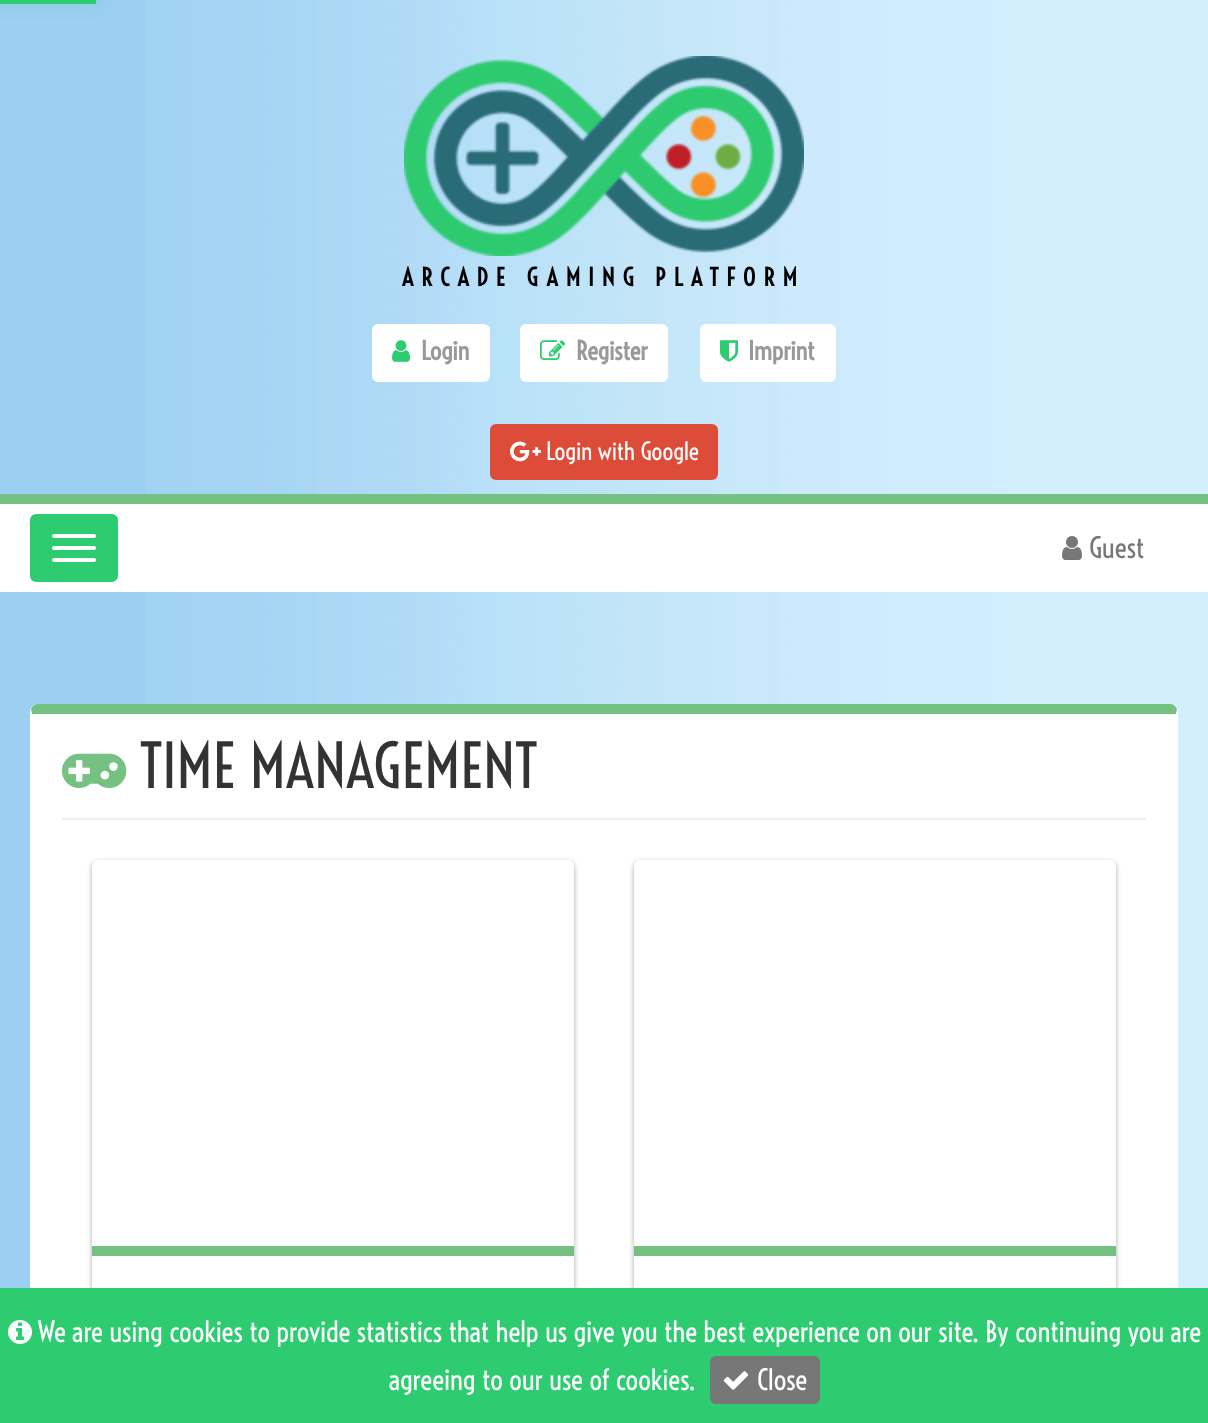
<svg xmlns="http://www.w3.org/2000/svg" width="1208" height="1423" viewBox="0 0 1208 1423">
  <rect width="100%" height="100%" fill="#9ccff2"/>
  <image x="146" y="0" width="1062" height="1288" href="img/1.png"/>
  <path d="M0 0h96v4H0z" fill="#2ecc71"/>
  <path d="M-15 -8h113v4H-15z" fill="#2ecc71" filter="blur(5px)"/>
  <path d="M-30 -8h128v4H-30z" fill="#2ecc71" filter="blur(10px)"/>
  <image x="404" y="56" width="400" height="200" href="img/2.png"/>
  <rect x="372" y="324" width="118" height="58" rx="6" fill="#fff"/>
  <image x="392" y="340" width="18" height="22" href="img/3.png"/>
  <rect x="520" y="324" width="148" height="58" rx="6" fill="#fff"/>
  <image x="540" y="340" width="26" height="20" href="img/4.png"/>
  <rect x="700" y="324" width="136" height="58" rx="6" fill="#fff"/>
  <image x="720" y="340" width="18" height="22" href="img/5.png"/>
  <rect x="490" y="424" width="228" height="56" rx="6" fill="#dd4b39"/>
  <image x="510" y="441" width="31" height="21" href="img/6.png"/>
  <path d="M0 504h1208v88H0z" fill="#fff"/>
  <path d="M0 494h1208v10H0z" fill="#75c181"/>
  <rect x="31" y="515" width="86" height="66" rx="5" fill="#2ecc71" stroke="#2ecc71" stroke-width="2"/>
  <rect x="52" y="534" width="44" height="4" rx="2" fill="#fff"/>
  <rect x="52" y="546" width="44" height="4" rx="2" fill="#fff"/>
  <rect x="52" y="558" width="44" height="4" rx="2" fill="#fff"/>
  <image x="1062" y="536" width="20" height="24" href="img/7.png"/>
  <rect x="30" y="704" width="1148" height="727" rx="8" fill="#fff"/>
  <path d="M38 704C35 704 32 706 31 709L32 714H1176L1177 709C1176 706 1173 704 1170 704Z" fill="#75c181"/>
  <path d="M62 818h1084v2H62z" fill="#eee"/>
  <image x="62" y="753" width="65" height="35" href="img/8.png"/>
  <rect x="92" y="862" width="482" height="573" rx="6" fill="#0000003d" filter="blur(2px)"/>
  <rect x="92" y="862" width="482" height="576" rx="6" fill="#0000001f" filter="blur(3px)"/>
  <rect x="92" y="860" width="482" height="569" rx="6" fill="#fff"/>
  <path d="M92 1246h482v10H92z" fill="#75c181"/>
  <rect x="634" y="862" width="482" height="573" rx="6" fill="#0000003d" filter="blur(2px)"/>
  <rect x="634" y="862" width="482" height="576" rx="6" fill="#0000001f" filter="blur(3px)"/>
  <rect x="634" y="860" width="482" height="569" rx="6" fill="#fff"/>
  <path d="M634 1246h482v10H634z" fill="#75c181"/>
  <path d="M0 1288h1208v135H0z" fill="#2ecc71"/>
  <image x="8" y="1320" width="24" height="24" href="img/9.png"/>
  <rect x="710" y="1356" width="110" height="48" rx="6" fill="#777"/>
  <image x="723" y="1371" width="26" height="19" href="img/10.png"/>
  <text x="402" y="286" font-family="Voltaire" font-size="24" font-weight="bold" letter-spacing="8" fill="#000">ARCADE GAMING PLATFORM</text>
  <g font-family="Voltaire" font-size="25" font-weight="bold" fill="#999">
    <text x="421" y="360">Login</text>
    <text x="576" y="360">Register</text>
    <text x="748" y="360">Imprint</text>
  </g>
  <text x="546" y="460" font-family="Voltaire" font-size="24" fill="#fff">Login with Google</text>
  <text x="1089" y="558" font-family="Voltaire" font-size="28" fill="#777">Guest</text>
  <text x="140" y="788" font-family="Voltaire" font-size="60" fill="#333">TIME MANAGEMENT</text>
  <g font-family="Voltaire" font-size="28" fill="#fff">
    <text x="38" y="1342">We are using cookies to provide statistics that help us give you the best experience on our site. By continuing you are</text>
    <text x="389" y="1390">agreeing to our use of cookies.</text>
    <text x="757" y="1390">Close</text>
  </g>
</svg>
